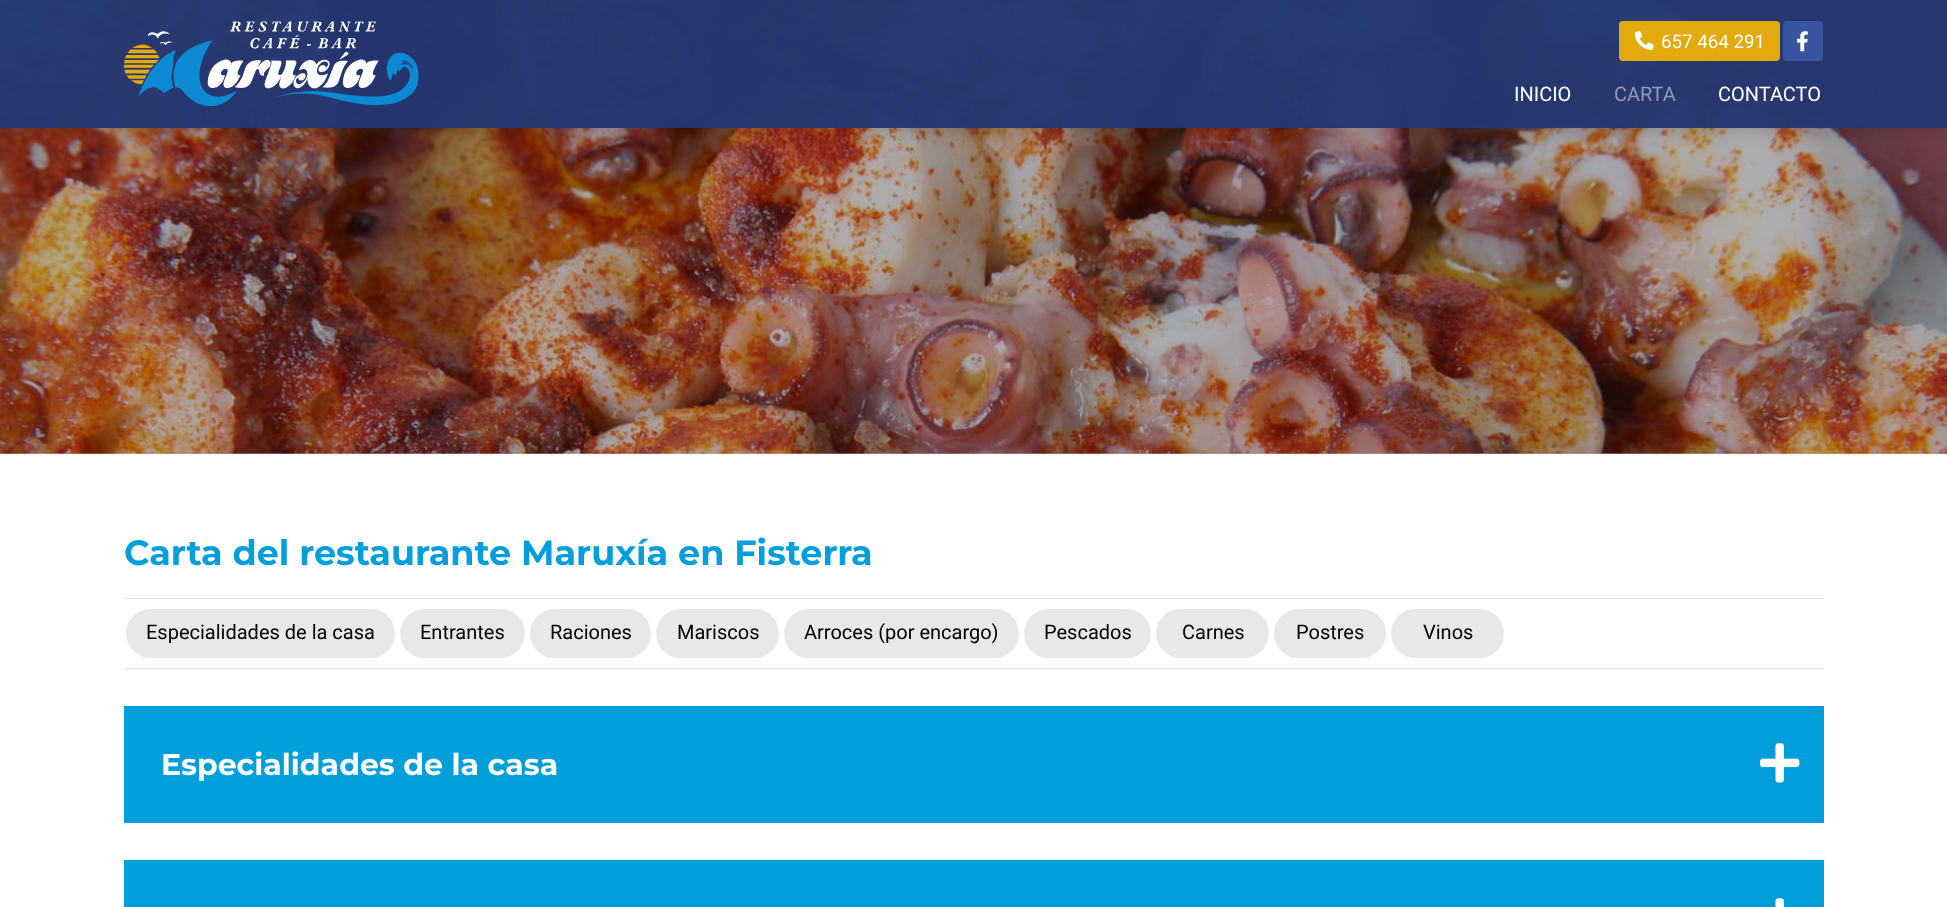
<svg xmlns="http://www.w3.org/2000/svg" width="1947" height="907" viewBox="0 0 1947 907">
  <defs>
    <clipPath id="clip1"><path d="M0 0H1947V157H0ZM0 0H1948V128H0Z" clip-rule="evenodd"/></clipPath>
  </defs>
  <rect width="100%" height="100%" fill="#fff"/>
  <path d="M0 453h1947v1H0z" fill="#b3b3b3"/>
  <image x="0" y="0" width="1947" height="454" href="img/4.png"/>
  <g clip-path="url(#clip1)">
    <path d="M0 1h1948v128H0z" fill="#00000033" filter="blur(9px)"/>
  </g>
  <path d="M0 0h1947v128H0z" fill="#233772f5"/>
  <image x="124" y="21" width="295" height="85" href="img/1.png"/>
  <rect x="1619" y="21" width="161" height="40" rx="4" fill="#e2aa0d"/>
  <image x="1634" y="31" width="20" height="19" href="img/2.png"/>
  <rect x="1783" y="21" width="40" height="40" rx="4" fill="#3a559f"/>
  <image x="1797" y="31" width="11" height="21" href="img/3.png"/>
  <path d="M124 598h1700v1H124z" fill="#e8e8e8"/>
  <path d="M124 668h1700v1H124z" fill="#e8e8e8"/>
  <rect x="126" y="609" width="269" height="49" rx="24.5" fill="#e8e8e8"/>
  <rect x="400" y="609" width="125" height="49" rx="24.5" fill="#e8e8e8"/>
  <rect x="530" y="609" width="121" height="49" rx="24.5" fill="#e8e8e8"/>
  <rect x="656" y="609" width="123" height="49" rx="24.5" fill="#e8e8e8"/>
  <rect x="784" y="609" width="235" height="49" rx="24.5" fill="#e8e8e8"/>
  <rect x="1024" y="609" width="127" height="49" rx="24.5" fill="#e8e8e8"/>
  <rect x="1156" y="609" width="113" height="49" rx="24.5" fill="#e8e8e8"/>
  <rect x="1274" y="609" width="112" height="49" rx="24.5" fill="#e8e8e8"/>
  <rect x="1391" y="609" width="113" height="49" rx="24.5" fill="#e8e8e8"/>
  <path d="M124 706h1700v117H124z" fill="#009edb"/>
  <image x="1760" y="743" width="40" height="40" href="img/5.png"/>
  <path d="M124 860h1700v47H124z" fill="#009edb"/>
  <image x="1775" y="898" width="9" height="9" href="img/6.png"/>
  <text x="1661" y="48" font-family="Roboto" font-size="18.75" fill="#fff">657 464 291</text>
  <text x="1514" y="101" font-family="Roboto" font-size="20" fill="#fff">INICIO</text>
  <text x="1614" y="101" font-family="Roboto" font-size="20" fill="#939bb7">CARTA</text>
  <text x="1718" y="101" font-family="Roboto" font-size="20" fill="#fff">CONTACTO</text>
  <text x="124" y="565" font-family="Montserrat" font-size="35" font-weight="bold" fill="#009edb">Carta del restaurante Maruxía en Fisterra</text>
  <g font-family="Roboto" font-size="20" fill="#000">
    <text x="146" y="639">Especialidades de la casa</text>
    <text x="420" y="639">Entrantes</text>
    <text x="550" y="639">Raciones</text>
    <text x="677" y="639">Mariscos</text>
    <text x="804" y="639">Arroces (por encargo)</text>
    <text x="1044" y="639">Pescados</text>
    <text x="1182" y="639">Carnes</text>
    <text x="1296" y="639">Postres</text>
    <text x="1423" y="639">Vinos</text>
  </g>
  <text x="161" y="775" font-family="Montserrat" font-size="30" font-weight="bold" fill="#fff">Especialidades de la casa</text>
</svg>
